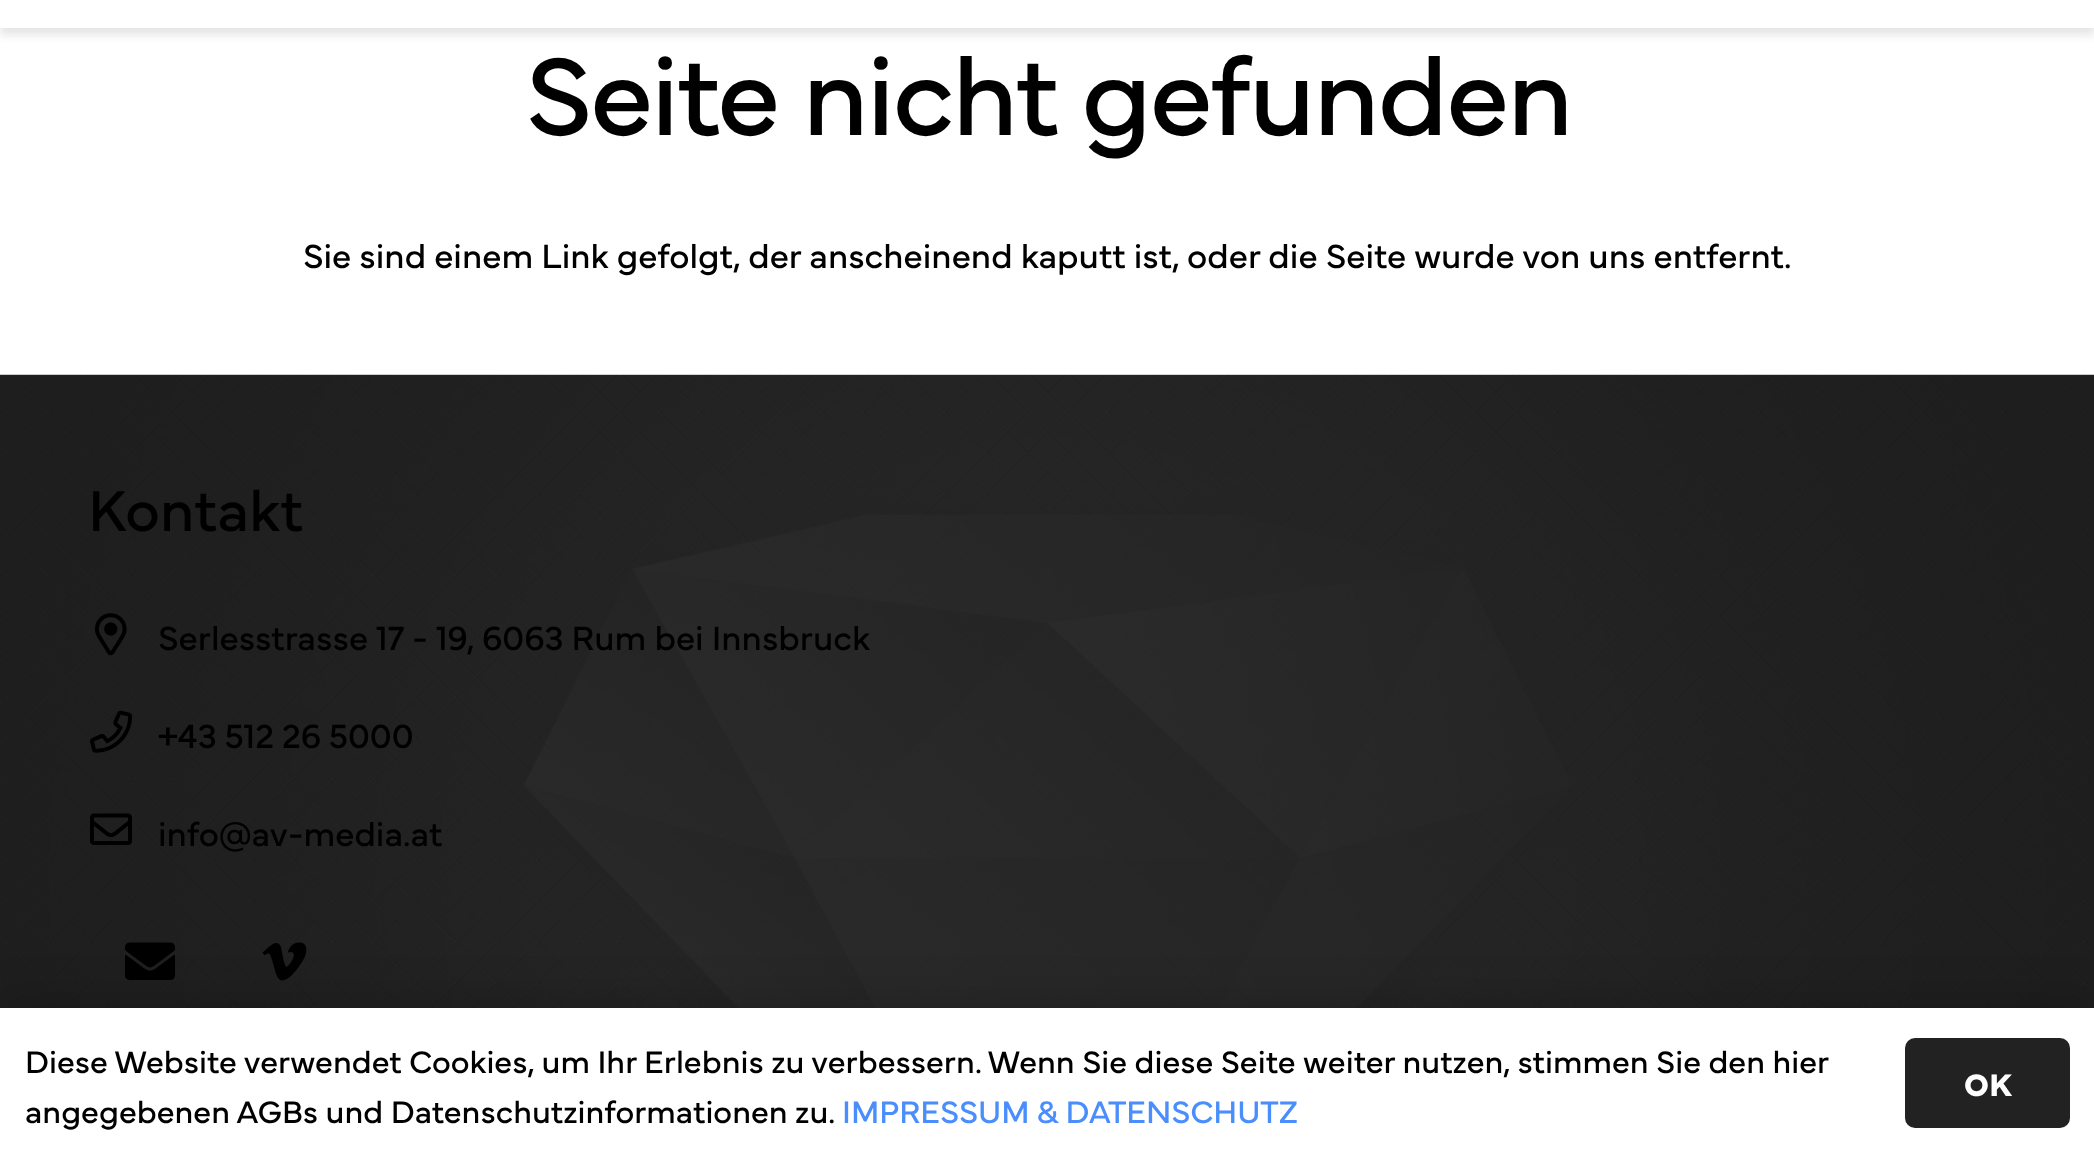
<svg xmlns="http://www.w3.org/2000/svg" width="2094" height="1157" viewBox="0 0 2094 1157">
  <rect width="100%" height="100%" fill="#fff"/>
  <path d="M0 -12h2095v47H0z" fill="#0000001a" filter="blur(4px)"/>
  <path d="M0 0h2094v28H0z" fill="#fff"/>
  <image x="0" y="374" width="2094" height="634" href="img/1.png"/>
  <image x="95" y="613" width="32" height="43" href="img/2.png"/>
  <image x="90" y="710" width="42" height="43" href="img/3.png"/>
  <image x="90" y="813" width="42" height="32" href="img/4.png"/>
  <image x="125" y="942" width="50" height="38" href="img/5.png"/>
  <image x="262" y="942" width="45" height="39" href="img/6.png"/>
  <path d="M0 995h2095v150H0z" fill="#00000026" filter="blur(19px)"/>
  <path d="M0 1008h2094v149H0z" fill="#fff"/>
  <rect x="1905" y="1038" width="165" height="90" rx="10" fill="#222"/>
  <text x="525" y="135" font-family="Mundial" font-size="115" letter-spacing="-2.25" fill="#000">Seite nicht gefunden</text>
  <text x="303" y="268" font-family="Mundial" font-size="35" fill="#000">Sie sind einem Link gefolgt, der anscheinend kaputt ist, oder die Seite wurde von uns entfernt.</text>
  <text x="88" y="531" font-family="Mundial" font-size="60" fill="#000">Kontakt</text>
  <g font-family="Mundial" font-size="35" fill="#000">
    <text x="158" y="650">Serlesstrasse 17 - 19, 6063 Rum bei Innsbruck</text>
    <text x="158" y="748">+43 512 26 5000</text>
    <text x="158" y="846">info@av-media.at</text>
  </g>
  <g font-family="Mundial" font-size="32.5" fill="#000">
    <text x="25" y="1073">Diese Website verwendet Cookies, um Ihr Erlebnis zu verbessern. Wenn Sie diese Seite weiter nutzen, stimmen Sie den hier</text>
    <text x="25" y="1123">angegebenen AGBs und Datenschutzinformationen zu.</text>
  </g>
  <text x="842" y="1123" font-family="Mundial" font-size="32.5" fill="#498efc">IMPRESSUM &amp; DATENSCHUTZ</text>
  <text x="1964" y="1096" font-family="Mundial" font-size="32.5" font-weight="bold" fill="#fff">OK</text>
</svg>
